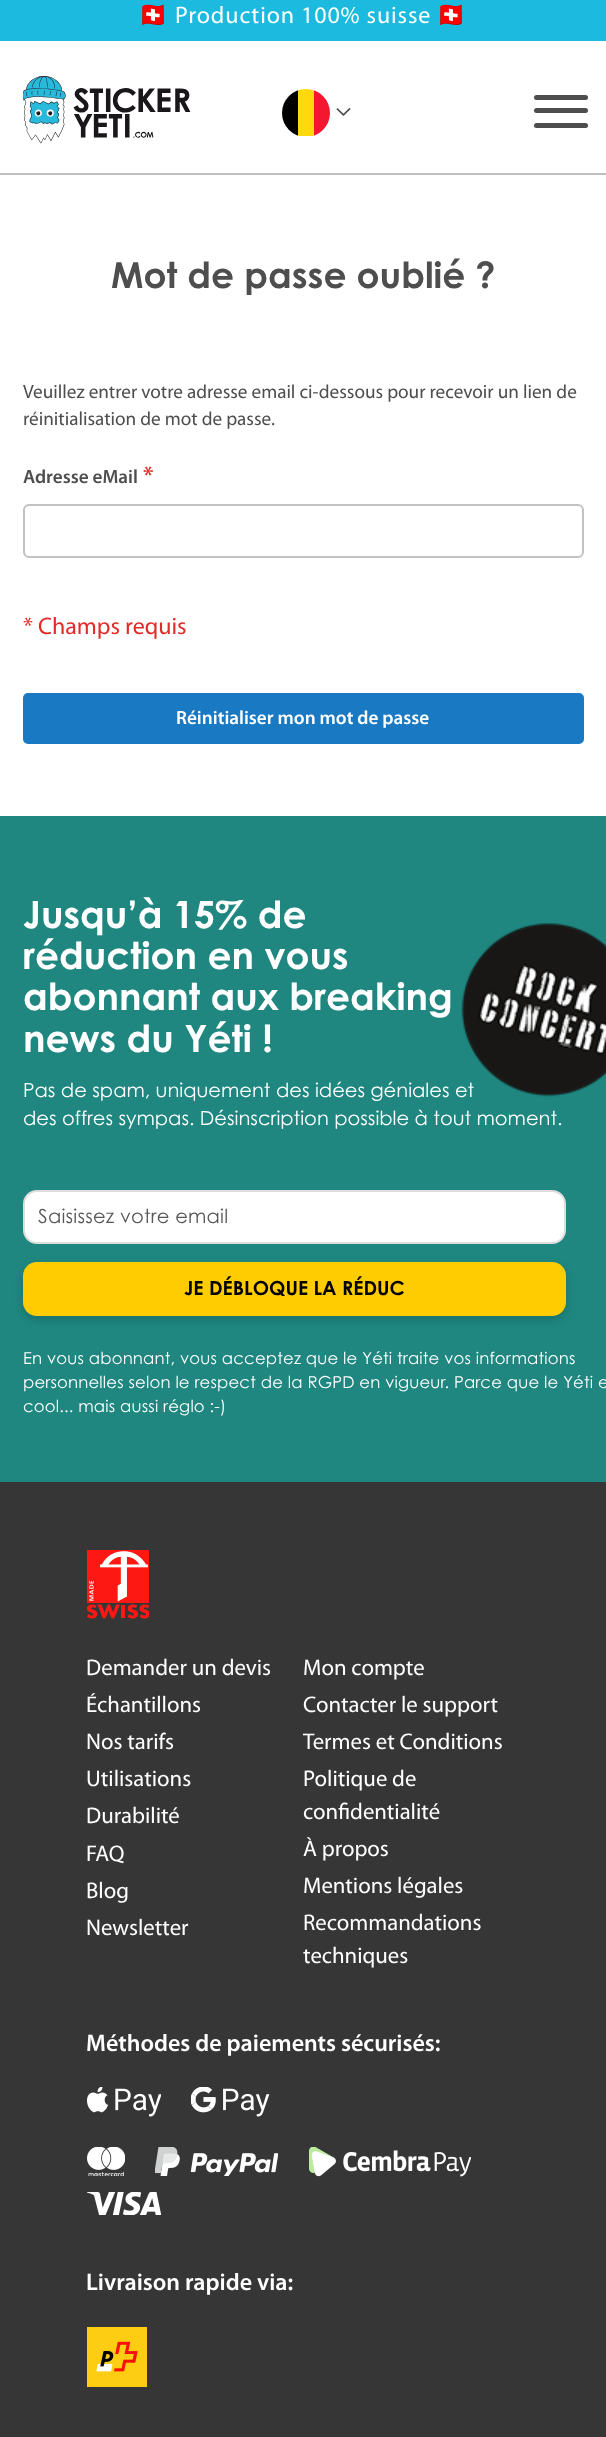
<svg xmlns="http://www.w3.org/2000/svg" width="606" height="2437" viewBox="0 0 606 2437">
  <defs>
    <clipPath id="clip1"><rect x="282" y="89" width="48" height="48" rx="24"/></clipPath>
  </defs>
  <rect width="100%" height="100%" fill="#fff"/>
  <path d="M0 0h606v41H0z" fill="#1dbadf"/>
  <image x="23" y="76" width="168" height="68" href="img/1.png"/>
  <rect x="534" y="95" width="54" height="5" rx="2.5" fill="#4e4e4e"/>
  <rect x="534" y="108" width="54" height="5" rx="2.5" fill="#4e4e4e"/>
  <rect x="534" y="123" width="54" height="5" rx="2.5" fill="#4e4e4e"/>
  <g clip-path="url(#clip1)">
    <path d="M282 90h16v46H282z" fill="#000"/>
    <path d="M298 89h16v47H298z" fill="#ffd90c"/>
    <path d="M314 90h16v46H314z" fill="#f31830"/>
  </g>
  <image x="336" y="107" width="15" height="9" href="img/2.png"/>
  <path d="M0 173h606v2H0z" fill="#bfbfbf"/>
  <rect x="24" y="505" width="559" height="52" rx="5" fill="none" stroke="#c2c2c2" stroke-width="2"/>
  <rect x="24" y="694" width="559" height="49" rx="4" fill="#1979c3" stroke="#1979c3" stroke-width="2"/>
  <path d="M0 1482h606v955H0z" fill="#363636"/>
  <path d="M0 816h606v666H0z" fill="#1f8780"/>
  <image x="461" y="923" width="145" height="174" href="img/3.png"/>
  <rect x="24" y="1191" width="541" height="52" rx="13" fill="#fff" stroke="#ddd" stroke-width="2"/>
  <rect x="23" y="1266" width="543" height="54" rx="14" fill="#00000029" filter="blur(4.5px)"/>
  <rect x="23" y="1262" width="543" height="54" rx="14" fill="#ffcc01"/>
  <image x="87" y="1550" width="62" height="69" href="img/4.png"/>
  <image x="87" y="2087" width="74" height="30" href="img/5.png"/>
  <image x="191" y="2087" width="79" height="30" href="img/6.png"/>
  <image x="87" y="2147" width="38" height="29" href="img/7.png"/>
  <image x="155" y="2147" width="123" height="29" href="img/8.png"/>
  <image x="309" y="2147" width="162" height="30" href="img/9.png"/>
  <image x="87" y="2192" width="74" height="23" href="img/10.png"/>
  <image x="87" y="2327" width="60" height="60" href="img/11.png"/>
  <text x="138" y="23" font-family="Noto Color Emoji" font-size="24" letter-spacing="0.9" fill="#fff">🇨🇭</text>
  <text x="175" y="23" font-family="Myriad" font-size="24" letter-spacing="0.9" fill="#fff">Production 100% suisse</text>
  <text x="436" y="23" font-family="Noto Color Emoji" font-size="24" letter-spacing="0.9" fill="#fff">🇨🇭</text>
  <text x="111" y="288" font-family="Century Gothic" font-size="36" font-weight="bold" fill="#4e4e4e">Mot de passe oublié ?</text>
  <g font-family="Myriad" font-size="19.2" fill="#4e4e4e">
    <text x="23" y="398">Veuillez entrer votre adresse email ci-dessous pour recevoir un lien de</text>
    <text x="23" y="425">réinitialisation de mot de passe.</text>
  </g>
  <text x="23" y="483" font-family="Myriad" font-size="19.2" font-weight="600" fill="#4e4e4e">Adresse eMail</text>
  <text x="143" y="483" font-family="Myriad" font-size="24" font-weight="600" fill="#e02b27">*</text>
  <text x="23" y="634" font-family="Myriad" font-size="24" fill="#e02b27">* Champs requis</text>
  <text x="176" y="724" font-family="Myriad" font-size="19.2" font-weight="600" fill="#fff">Réinitialiser mon mot de passe</text>
  <g font-family="Century Gothic" font-size="37.5" font-weight="bold" fill="#fff">
    <text x="23" y="928">Jusqu’à 15% de</text>
    <text x="23" y="969">réduction en vous</text>
    <text x="23" y="1010">abonnant aux breaking</text>
    <text x="23" y="1052">news du Yéti !</text>
  </g>
  <g font-family="Century Gothic" font-size="19.5" fill="#fff">
    <text x="23" y="1097">Pas de spam, uniquement des idées géniales et</text>
    <text x="23" y="1125">des offres sympas. Désinscription possible à tout moment.</text>
  </g>
  <text x="38" y="1223" font-family="Century Gothic" font-size="19.5" letter-spacing="0.2" fill="#575757">Saisissez votre email</text>
  <text x="184" y="1295" font-family="Century Gothic" font-size="19.5" font-weight="bold" fill="#000">JE DÉBLOQUE LA RÉDUC</text>
  <g font-family="Century Gothic" font-size="16.5" letter-spacing="0.17" fill="#fff">
    <text x="23" y="1364">En vous abonnant, vous acceptez que le Yéti traite vos informations</text>
    <text x="23" y="1388">personnelles selon le respect de la RGPD en vigueur. Parce que le Yéti e</text>
    <text x="23" y="1412">cool... mais aussi réglo :-)</text>
  </g>
  <g font-family="Myriad" font-size="22.75" fill="#fff">
    <text x="86" y="1675">Demander un devis</text>
    <text x="86" y="1712">Échantillons</text>
    <text x="86" y="1749">Nos tarifs</text>
    <text x="86" y="1786">Utilisations</text>
    <text x="86" y="1823">Durabilité</text>
    <text x="86" y="1861">FAQ</text>
    <text x="86" y="1898">Blog</text>
    <text x="86" y="1935">Newsletter</text>
    <text x="303" y="1675">Mon compte</text>
    <text x="303" y="1712">Contacter le support</text>
    <text x="303" y="1749">Termes et Conditions</text>
    <text x="303" y="1786">Politique de</text>
    <text x="303" y="1819">confidentialité</text>
    <text x="303" y="1856">À propos</text>
    <text x="303" y="1893">Mentions légales</text>
    <text x="303" y="1930">Recommandations</text>
    <text x="303" y="1963">techniques</text>
  </g>
  <g font-family="Myriad" font-size="24" font-weight="600" fill="#fff">
    <text x="86" y="2051">Méthodes de paiements sécurisés:</text>
    <text x="86" y="2290">Livraison rapide via:</text>
  </g>
</svg>
